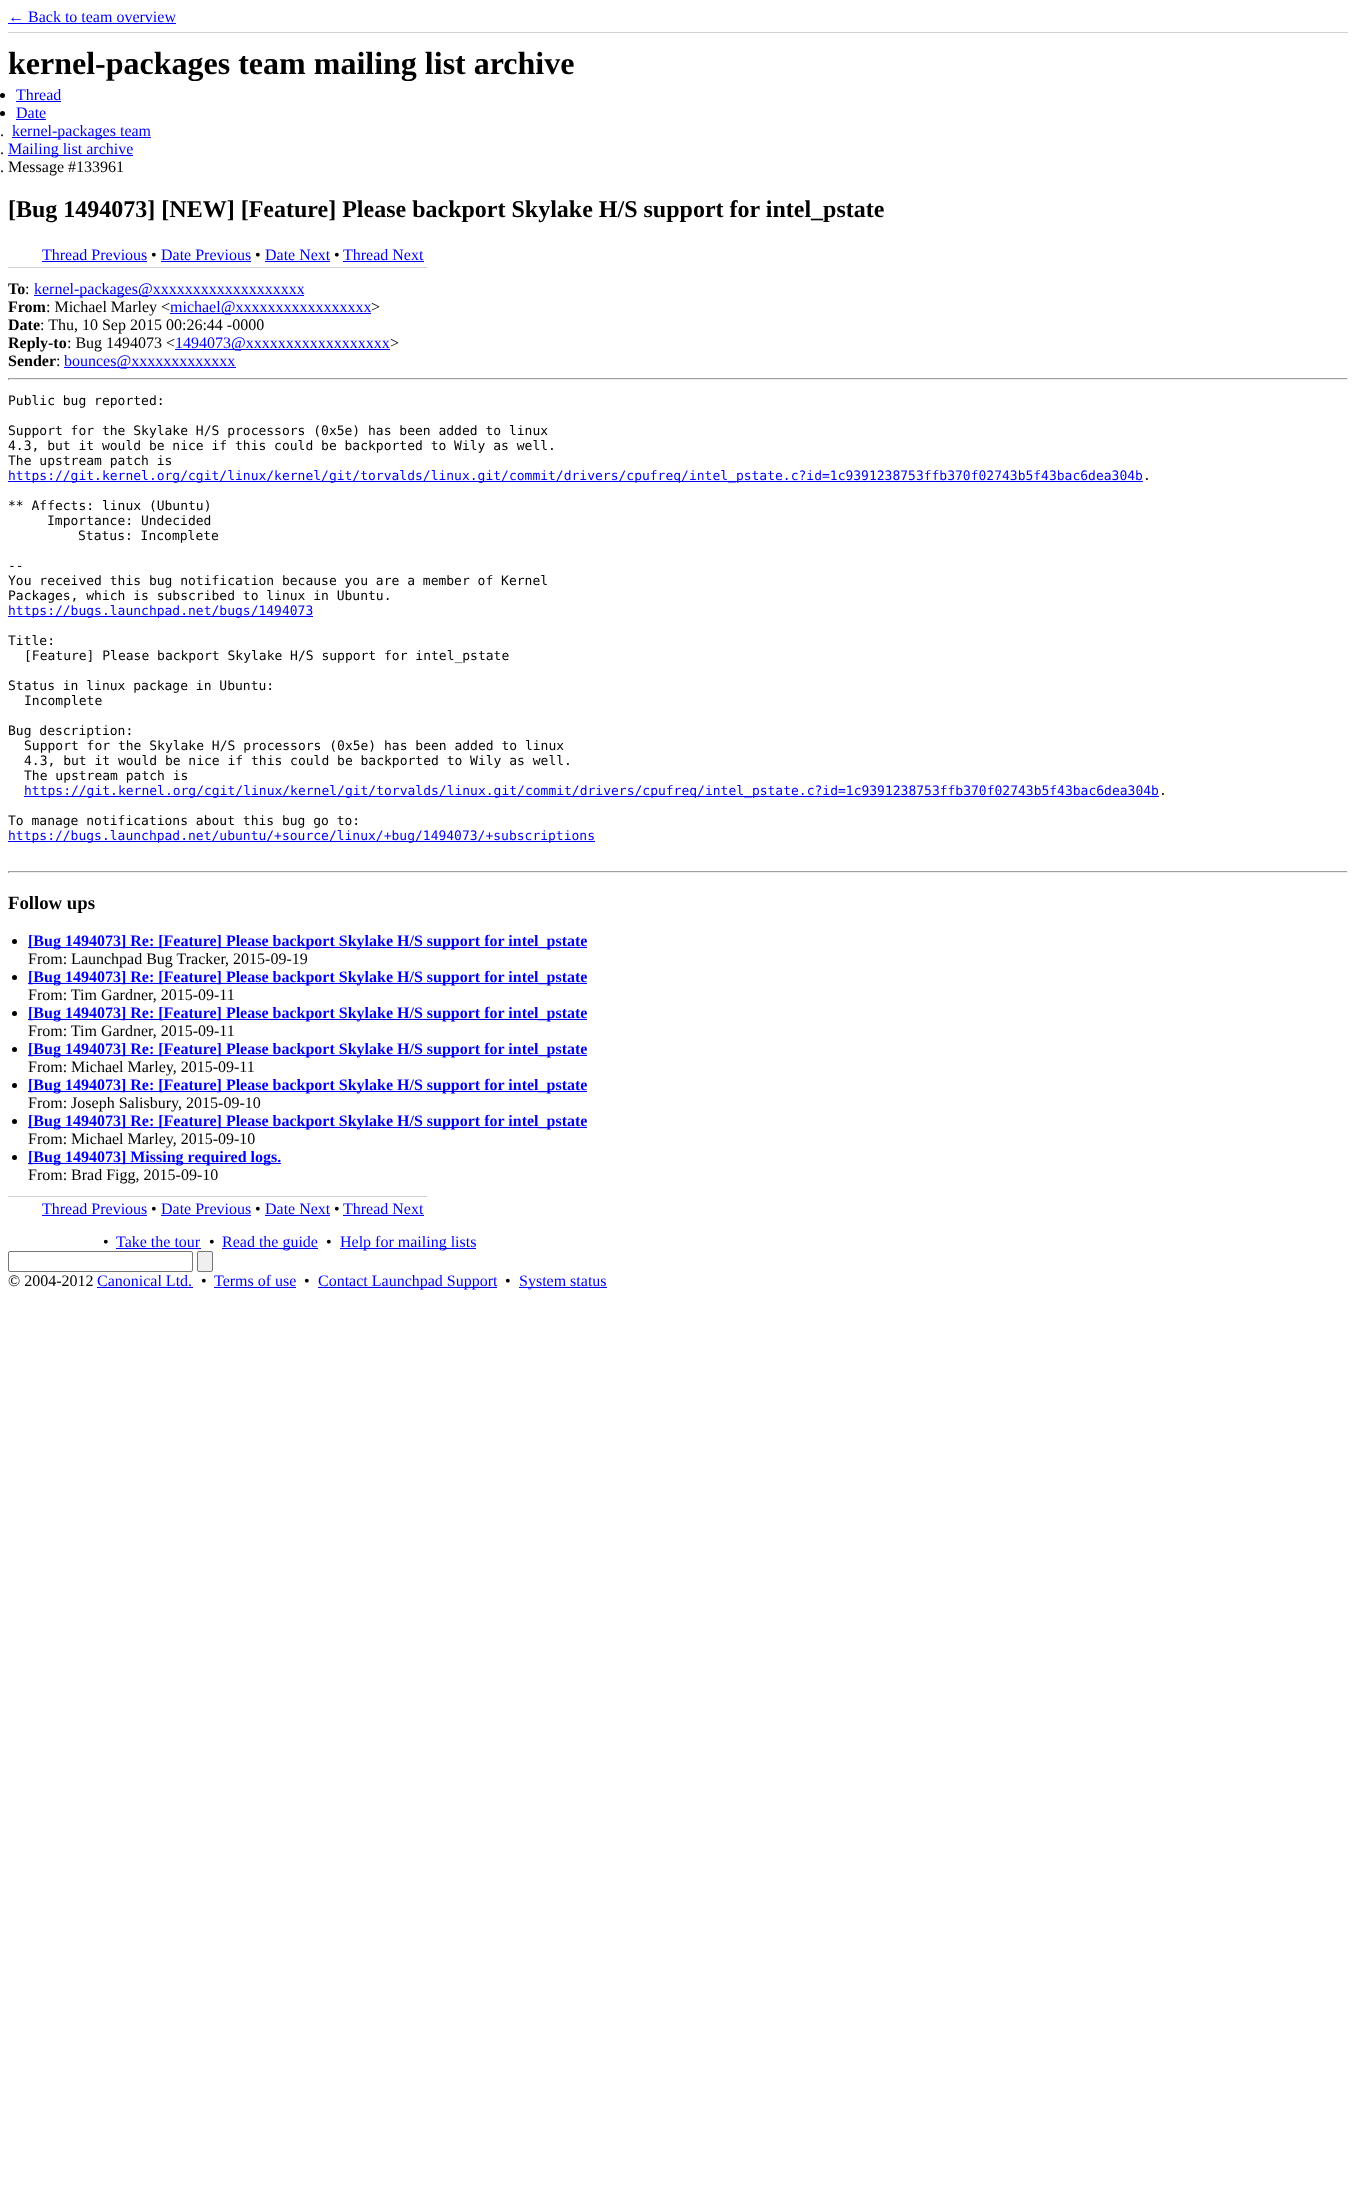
<svg xmlns="http://www.w3.org/2000/svg" width="1356" height="2185" viewBox="0 0 1356 2185">
  <rect width="100%" height="100%" fill="#fff"/>
  <path d="M8 32h1340v1H8z" fill="#d2d2d2"/>
  <path d="M8 23h168v1H8z" fill="#00e"/>
  <circle cx="2.5" cy="95.5" r="2.5" fill="#000"/>
  <path d="M16 101h45v1H16z" fill="#00e"/>
  <circle cx="2.5" cy="113.5" r="2.5" fill="#000"/>
  <path d="M16 119h30v1H16z" fill="#00e"/>
  <path d="M12 137h139v1H12z" fill="#00e"/>
  <path d="M8 155h125v1H8z" fill="#00e"/>
  <path d="M8 267h419v1H8z" fill="#d2d2d2"/>
  <path d="M42 261h105v1H42z" fill="#00e"/>
  <path d="M161 261h90v1H161z" fill="#00e"/>
  <path d="M265 261h65v1H265z" fill="#00e"/>
  <path d="M343 261h81v1H343z" fill="#00e"/>
  <path d="M34 295h270v1H34z" fill="#00e"/>
  <path d="M170 313h201v1H170z" fill="#00e"/>
  <path d="M175 349h215v1H175z" fill="#00e"/>
  <path d="M64 367h172v1H64z" fill="#00e"/>
  <path d="M8 378h1340v1H8z" fill="#9f9f9f"/>
  <path d="M1347 378h1v2H1347z" fill="#eee"/>
  <path d="M8 379h1340v1H8z" fill="#eee"/>
  <path d="M8 378h1v2H8z" fill="#9f9f9f"/>
  <path d="M8 481h1135v1H8z" fill="#00e"/>
  <path d="M8 616h305v1H8z" fill="#00e"/>
  <path d="M24 796h1135v1H24z" fill="#00e"/>
  <path d="M8 841h587v1H8z" fill="#00e"/>
  <path d="M8 871h1340v1H8z" fill="#9f9f9f"/>
  <path d="M1347 871h1v2H1347z" fill="#eee"/>
  <path d="M8 872h1340v1H8z" fill="#eee"/>
  <path d="M8 871h1v2H8z" fill="#9f9f9f"/>
  <circle cx="14.5" cy="941.5" r="2.5" fill="#000"/>
  <path d="M28 947h559v1H28z" fill="#00e"/>
  <circle cx="14.5" cy="977.5" r="2.5" fill="#000"/>
  <path d="M28 983h559v1H28z" fill="#00e"/>
  <circle cx="14.5" cy="1013.5" r="2.5" fill="#000"/>
  <path d="M28 1019h559v1H28z" fill="#00e"/>
  <circle cx="14.5" cy="1049.5" r="2.5" fill="#000"/>
  <path d="M28 1055h559v1H28z" fill="#00e"/>
  <circle cx="14.5" cy="1085.5" r="2.5" fill="#000"/>
  <path d="M28 1091h559v1H28z" fill="#00e"/>
  <circle cx="14.5" cy="1121.5" r="2.5" fill="#000"/>
  <path d="M28 1127h559v1H28z" fill="#00e"/>
  <circle cx="14.5" cy="1157.5" r="2.5" fill="#000"/>
  <path d="M28 1163h253v1H28z" fill="#00e"/>
  <path d="M8 1196h419v1H8z" fill="#d2d2d2"/>
  <path d="M42 1215h105v1H42z" fill="#00e"/>
  <path d="M161 1215h90v1H161z" fill="#00e"/>
  <path d="M265 1215h65v1H265z" fill="#00e"/>
  <path d="M343 1215h81v1H343z" fill="#00e"/>
  <path d="M116 1248h85v1H116z" fill="#00e"/>
  <path d="M222 1248h96v1H222z" fill="#00e"/>
  <path d="M340 1248h136v1H340z" fill="#00e"/>
  <rect x="8.5" y="1251.5" width="184" height="20" rx="1.5" fill="none" stroke="#767676"/>
  <rect x="197.5" y="1251.5" width="15" height="20" rx="1.5" fill="#efefef" stroke="#767676"/>
  <path d="M97 1287h96v1H97z" fill="#00e"/>
  <path d="M214 1287h82v1H214z" fill="#00e"/>
  <path d="M318 1287h179v1H318z" fill="#00e"/>
  <path d="M519 1287h88v1H519z" fill="#00e"/>
  <text x="8" y="22" font-family="Liberation Serif" font-size="16" fill="#00e">← Back to team overview</text>
  <text x="8" y="74" font-family="Liberation Serif" font-size="32" font-weight="bold" fill="#000">kernel-packages team mailing list archive</text>
  <g font-family="Liberation Serif" font-size="16" fill="#00e">
    <text x="16" y="100">Thread</text>
    <text x="16" y="118">Date</text>
  </g>
  <text x="0" y="136" font-family="Liberation Serif" font-size="16" fill="#000">.</text>
  <text x="12" y="136" font-family="Liberation Serif" font-size="16" fill="#00e">kernel-packages team</text>
  <text x="0" y="154" font-family="Liberation Serif" font-size="16" fill="#000">.</text>
  <text x="8" y="154" font-family="Liberation Serif" font-size="16" fill="#00e">Mailing list archive</text>
  <text x="0" y="172" font-family="Liberation Serif" font-size="16" fill="#000">. Message #133961</text>
  <text x="8" y="217" font-family="Liberation Serif" font-size="24" font-weight="bold" fill="#000">[Bug 1494073] [NEW] [Feature] Please backport Skylake H/S support for intel_pstate</text>
  <text x="42" y="260" font-family="Liberation Serif" font-size="16" fill="#00e">Thread Previous</text>
  <text x="151" y="260" font-family="Liberation Serif" font-size="16" fill="#000">•</text>
  <text x="161" y="260" font-family="Liberation Serif" font-size="16" fill="#00e">Date Previous</text>
  <text x="255" y="260" font-family="Liberation Serif" font-size="16" fill="#000">•</text>
  <text x="265" y="260" font-family="Liberation Serif" font-size="16" fill="#00e">Date Next</text>
  <text x="334" y="260" font-family="Liberation Serif" font-size="16" fill="#000">•</text>
  <text x="343" y="260" font-family="Liberation Serif" font-size="16" fill="#00e">Thread Next</text>
  <text x="8" y="294" font-family="Liberation Serif" font-size="16" font-weight="bold" fill="#000">To</text>
  <text x="25" y="294" font-family="Liberation Serif" font-size="16" fill="#000">:</text>
  <text x="34" y="294" font-family="Liberation Serif" font-size="16" fill="#00e">kernel-packages@xxxxxxxxxxxxxxxxxxx</text>
  <text x="8" y="312" font-family="Liberation Serif" font-size="16" font-weight="bold" fill="#000">From</text>
  <text x="46" y="312" font-family="Liberation Serif" font-size="16" fill="#000">: Michael Marley &lt;</text>
  <text x="170" y="312" font-family="Liberation Serif" font-size="16" fill="#00e">michael@xxxxxxxxxxxxxxxxx</text>
  <text x="371" y="312" font-family="Liberation Serif" font-size="16" fill="#000">&gt;</text>
  <text x="8" y="330" font-family="Liberation Serif" font-size="16" font-weight="bold" fill="#000">Date</text>
  <text x="40" y="330" font-family="Liberation Serif" font-size="16" fill="#000">: Thu, 10 Sep 2015 00:26:44 -0000</text>
  <text x="8" y="348" font-family="Liberation Serif" font-size="16" font-weight="bold" fill="#000">Reply-to</text>
  <text x="67" y="348" font-family="Liberation Serif" font-size="16" fill="#000">: Bug 1494073 &lt;</text>
  <text x="175" y="348" font-family="Liberation Serif" font-size="16" fill="#00e">1494073@xxxxxxxxxxxxxxxxxx</text>
  <text x="390" y="348" font-family="Liberation Serif" font-size="16" fill="#000">&gt;</text>
  <text x="8" y="366" font-family="Liberation Serif" font-size="16" font-weight="bold" fill="#000">Sender</text>
  <text x="56" y="366" font-family="Liberation Serif" font-size="16" fill="#000">:</text>
  <text x="64" y="366" font-family="Liberation Serif" font-size="16" fill="#00e">bounces@xxxxxxxxxxxxx</text>
  <g font-family="DejaVu Sans Mono" font-size="13" fill="#000">
    <text x="8" y="405">Public bug reported:</text>
    <text x="8" y="435">Support for the Skylake H/S processors (0x5e) has been added to linux</text>
    <text x="8" y="450">4.3, but it would be nice if this could be backported to Wily as well.</text>
    <text x="8" y="465">The upstream patch is</text>
  </g>
  <text x="8" y="480" font-family="DejaVu Sans Mono" font-size="13" fill="#00e">https://git.kernel.org/cgit/linux/kernel/git/torvalds/linux.git/commit/drivers/cpufreq/intel_pstate.c?id=1c9391238753ffb370f02743b5f43bac6dea304b</text>
  <g font-family="DejaVu Sans Mono" font-size="13" fill="#000">
    <text x="1143" y="480">.</text>
    <text x="8" y="510">** Affects: linux (Ubuntu)</text>
    <text x="47" y="525">Importance: Undecided</text>
    <text x="78" y="540">Status: Incomplete</text>
    <text x="8" y="570">--</text>
    <text x="8" y="585">You received this bug notification because you are a member of Kernel</text>
    <text x="8" y="600">Packages, which is subscribed to linux in Ubuntu.</text>
  </g>
  <text x="8" y="615" font-family="DejaVu Sans Mono" font-size="13" fill="#00e">https://bugs.launchpad.net/bugs/1494073</text>
  <g font-family="DejaVu Sans Mono" font-size="13" fill="#000">
    <text x="8" y="645">Title:</text>
    <text x="24" y="660">[Feature] Please backport Skylake H/S support for intel_pstate</text>
    <text x="8" y="690">Status in linux package in Ubuntu:</text>
    <text x="24" y="705">Incomplete</text>
    <text x="8" y="735">Bug description:</text>
    <text x="24" y="750">Support for the Skylake H/S processors (0x5e) has been added to linux</text>
    <text x="24" y="765">4.3, but it would be nice if this could be backported to Wily as well.</text>
    <text x="24" y="780">The upstream patch is</text>
  </g>
  <text x="24" y="795" font-family="DejaVu Sans Mono" font-size="13" fill="#00e">https://git.kernel.org/cgit/linux/kernel/git/torvalds/linux.git/commit/drivers/cpufreq/intel_pstate.c?id=1c9391238753ffb370f02743b5f43bac6dea304b</text>
  <g font-family="DejaVu Sans Mono" font-size="13" fill="#000">
    <text x="1159" y="795">.</text>
    <text x="8" y="825">To manage notifications about this bug go to:</text>
  </g>
  <text x="8" y="840" font-family="DejaVu Sans Mono" font-size="13" fill="#00e">https://bugs.launchpad.net/ubuntu/+source/linux/+bug/1494073/+subscriptions</text>
  <text x="8" y="909" font-family="Liberation Serif" font-size="18.75" font-weight="bold" fill="#000">Follow ups</text>
  <text x="28" y="946" font-family="Liberation Serif" font-size="16" font-weight="bold" fill="#00e">[Bug 1494073] Re: [Feature] Please backport Skylake H/S support for intel_pstate</text>
  <text x="28" y="964" font-family="Liberation Serif" font-size="16" fill="#000">From: Launchpad Bug Tracker, 2015-09-19</text>
  <text x="28" y="982" font-family="Liberation Serif" font-size="16" font-weight="bold" fill="#00e">[Bug 1494073] Re: [Feature] Please backport Skylake H/S support for intel_pstate</text>
  <text x="28" y="1000" font-family="Liberation Serif" font-size="16" fill="#000">From: Tim Gardner, 2015-09-11</text>
  <text x="28" y="1018" font-family="Liberation Serif" font-size="16" font-weight="bold" fill="#00e">[Bug 1494073] Re: [Feature] Please backport Skylake H/S support for intel_pstate</text>
  <text x="28" y="1036" font-family="Liberation Serif" font-size="16" fill="#000">From: Tim Gardner, 2015-09-11</text>
  <text x="28" y="1054" font-family="Liberation Serif" font-size="16" font-weight="bold" fill="#00e">[Bug 1494073] Re: [Feature] Please backport Skylake H/S support for intel_pstate</text>
  <text x="28" y="1072" font-family="Liberation Serif" font-size="16" fill="#000">From: Michael Marley, 2015-09-11</text>
  <text x="28" y="1090" font-family="Liberation Serif" font-size="16" font-weight="bold" fill="#00e">[Bug 1494073] Re: [Feature] Please backport Skylake H/S support for intel_pstate</text>
  <text x="28" y="1108" font-family="Liberation Serif" font-size="16" fill="#000">From: Joseph Salisbury, 2015-09-10</text>
  <text x="28" y="1126" font-family="Liberation Serif" font-size="16" font-weight="bold" fill="#00e">[Bug 1494073] Re: [Feature] Please backport Skylake H/S support for intel_pstate</text>
  <text x="28" y="1144" font-family="Liberation Serif" font-size="16" fill="#000">From: Michael Marley, 2015-09-10</text>
  <text x="28" y="1162" font-family="Liberation Serif" font-size="16" font-weight="bold" fill="#00e">[Bug 1494073] Missing required logs.</text>
  <text x="28" y="1180" font-family="Liberation Serif" font-size="16" fill="#000">From: Brad Figg, 2015-09-10</text>
  <text x="42" y="1214" font-family="Liberation Serif" font-size="16" fill="#00e">Thread Previous</text>
  <text x="151" y="1214" font-family="Liberation Serif" font-size="16" fill="#000">•</text>
  <text x="161" y="1214" font-family="Liberation Serif" font-size="16" fill="#00e">Date Previous</text>
  <text x="255" y="1214" font-family="Liberation Serif" font-size="16" fill="#000">•</text>
  <text x="265" y="1214" font-family="Liberation Serif" font-size="16" fill="#00e">Date Next</text>
  <text x="334" y="1214" font-family="Liberation Serif" font-size="16" fill="#000">•</text>
  <text x="343" y="1214" font-family="Liberation Serif" font-size="16" fill="#00e">Thread Next</text>
  <text x="103" y="1247" font-family="Liberation Serif" font-size="16" fill="#000">•</text>
  <text x="116" y="1247" font-family="Liberation Serif" font-size="16" fill="#00e">Take the tour</text>
  <text x="209" y="1247" font-family="Liberation Serif" font-size="16" fill="#000">•</text>
  <text x="222" y="1247" font-family="Liberation Serif" font-size="16" fill="#00e">Read the guide</text>
  <text x="326" y="1247" font-family="Liberation Serif" font-size="16" fill="#000">•</text>
  <text x="340" y="1247" font-family="Liberation Serif" font-size="16" fill="#00e">Help for mailing lists</text>
  <text x="8" y="1286" font-family="Liberation Serif" font-size="16" fill="#000">© 2004-2012</text>
  <text x="97" y="1286" font-family="Liberation Serif" font-size="16" fill="#00e">Canonical Ltd.</text>
  <text x="201" y="1286" font-family="Liberation Serif" font-size="16" fill="#000">•</text>
  <text x="214" y="1286" font-family="Liberation Serif" font-size="16" fill="#00e">Terms of use</text>
  <text x="304" y="1286" font-family="Liberation Serif" font-size="16" fill="#000">•</text>
  <text x="318" y="1286" font-family="Liberation Serif" font-size="16" fill="#00e">Contact Launchpad Support</text>
  <text x="505" y="1286" font-family="Liberation Serif" font-size="16" fill="#000">•</text>
  <text x="519" y="1286" font-family="Liberation Serif" font-size="16" fill="#00e">System status</text>
</svg>
